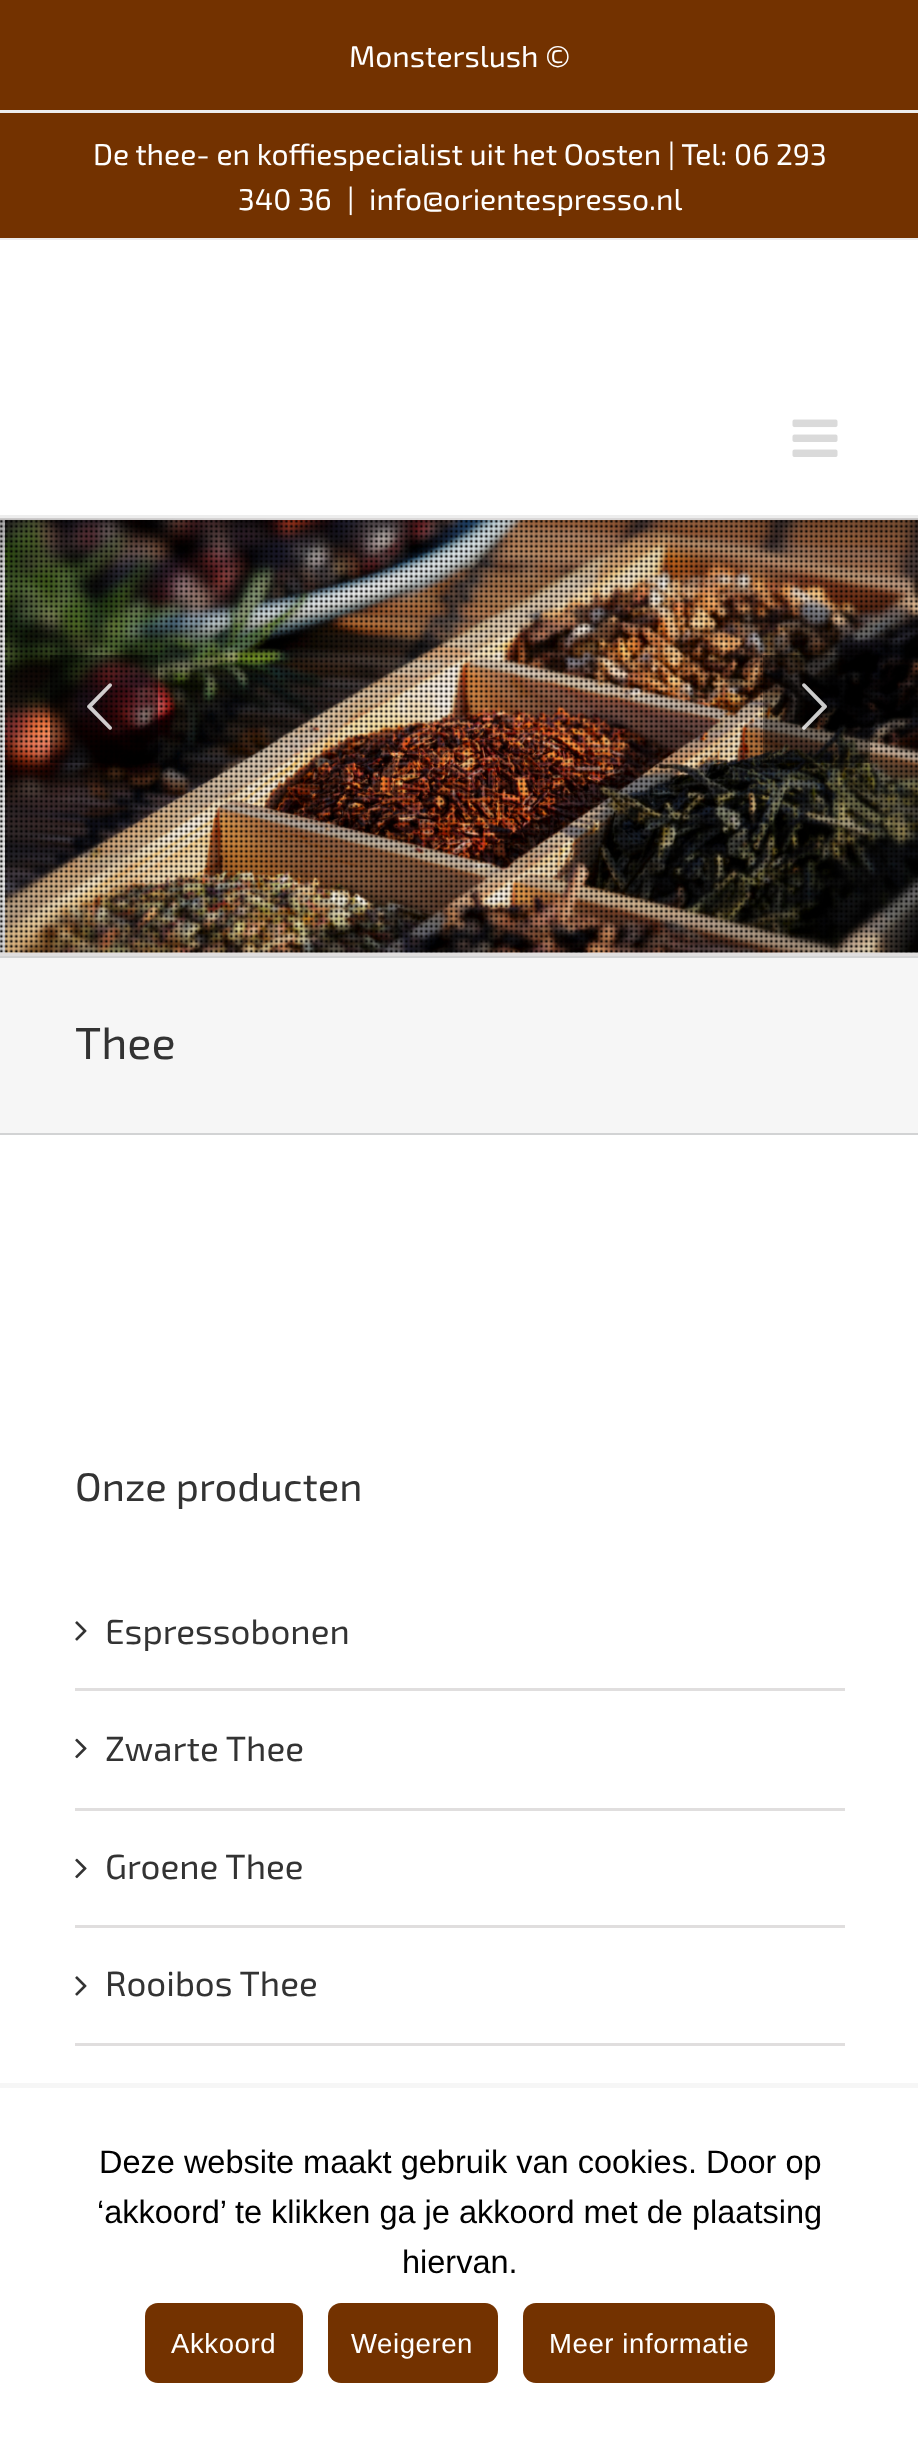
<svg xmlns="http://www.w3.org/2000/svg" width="918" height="2443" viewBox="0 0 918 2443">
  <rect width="100%" height="100%" fill="#f6f6f6"/>
  <path d="M0 0h918v238H0z" fill="#733200"/>
  <path d="M0 238h918v2H0z" fill="#ededed"/>
  <path d="M0 110h918v3H0z" fill="#ededed"/>
  <path d="M0 240h918v275H0z" fill="#fff"/>
  <path d="M0 515h918v3H0z" fill="#ededed"/>
  <image x="792" y="419" width="46" height="38" href="img/1.png"/>
  <path d="M0 521h918v432H0z" fill="#e9e9e9"/>
  <path d="M0 518h918v3H0z" fill="#e0dede"/>
  <path d="M0 953h918v3H0z" fill="#e0dede"/>
  <image x="5" y="520" width="913" height="433" href="img/4.png"/>
  <image x="0" y="520" width="918" height="433" href="img/3.png"/>
  <image x="0" y="518" width="918" height="68" href="img/2.png"/>
  <path d="M50 655h108v108H50z" fill="#00000066"/>
  <image x="87" y="683" width="25" height="47" href="img/5.png"/>
  <path d="M763 655h107v108H763z" fill="#00000066"/>
  <image x="802" y="683" width="25" height="47" href="img/6.png"/>
  <image x="0" y="902" width="915" height="51" href="img/7.png"/>
  <path d="M0 956h918v2H0z" fill="#d2d3d4"/>
  <path d="M0 1133h918v2H0z" fill="#d2d3d4"/>
  <path d="M0 1135h918v948H0z" fill="#fff"/>
  <path d="M75 1688h770v3H75z" fill="#e0dede"/>
  <image x="75" y="1621" width="12" height="20" href="img/8.png"/>
  <path d="M75 1808h770v3H75z" fill="#e0dede"/>
  <image x="75" y="1738" width="12" height="21" href="img/9.png"/>
  <path d="M75 1925h770v3H75z" fill="#e0dede"/>
  <image x="75" y="1858" width="12" height="21" href="img/9.png"/>
  <path d="M75 2043h770v3H75z" fill="#e0dede"/>
  <image x="75" y="1976" width="12" height="20" href="img/8.png"/>
  <path d="M0 2088h918v355H0z" fill="#fff"/>
  <rect x="145" y="2303" width="158" height="80" rx="13" fill="#733200"/>
  <rect x="328" y="2303" width="170" height="80" rx="13" fill="#733200"/>
  <rect x="523" y="2303" width="252" height="80" rx="13" fill="#733200"/>
  <g font-family="'Exo 2'" font-size="30" fill="#fff">
    <text x="349" y="67">Monsterslush ©</text>
    <text x="93" y="165">De thee- en koffiespecialist uit het Oosten | Tel: 06 293</text>
    <text x="238" y="210">340 36</text>
    <text x="347" y="210">|</text>
    <text x="369" y="210">info@orientespresso.nl</text>
  </g>
  <text x="75" y="1059" font-family="'Exo 2'" font-size="45" fill="#333">Thee</text>
  <text x="75" y="1501" font-family="'Exo 2'" font-size="40" fill="#333">Onze producten</text>
  <g font-family="'Exo 2'" font-size="35" fill="#333">
    <text x="105" y="1644">Espressobonen</text>
    <text x="105" y="1761">Zwarte Thee</text>
    <text x="105" y="1879">Groene Thee</text>
    <text x="105" y="1996">Rooibos Thee</text>
  </g>
  <g font-family="Liberation Sans" font-size="32.5" fill="#000">
    <text x="99" y="2173">Deze website maakt gebruik van cookies. Door op</text>
    <text x="97" y="2223">‘akkoord’ te klikken ga je akkoord met de plaatsing</text>
    <text x="402" y="2273">hiervan.</text>
  </g>
  <g font-family="Liberation Sans" font-size="27.5" letter-spacing="0.6" fill="#fff">
    <text x="171" y="2353">Akkoord</text>
    <text x="351" y="2353">Weigeren</text>
    <text x="549" y="2353">Meer informatie</text>
  </g>
</svg>
